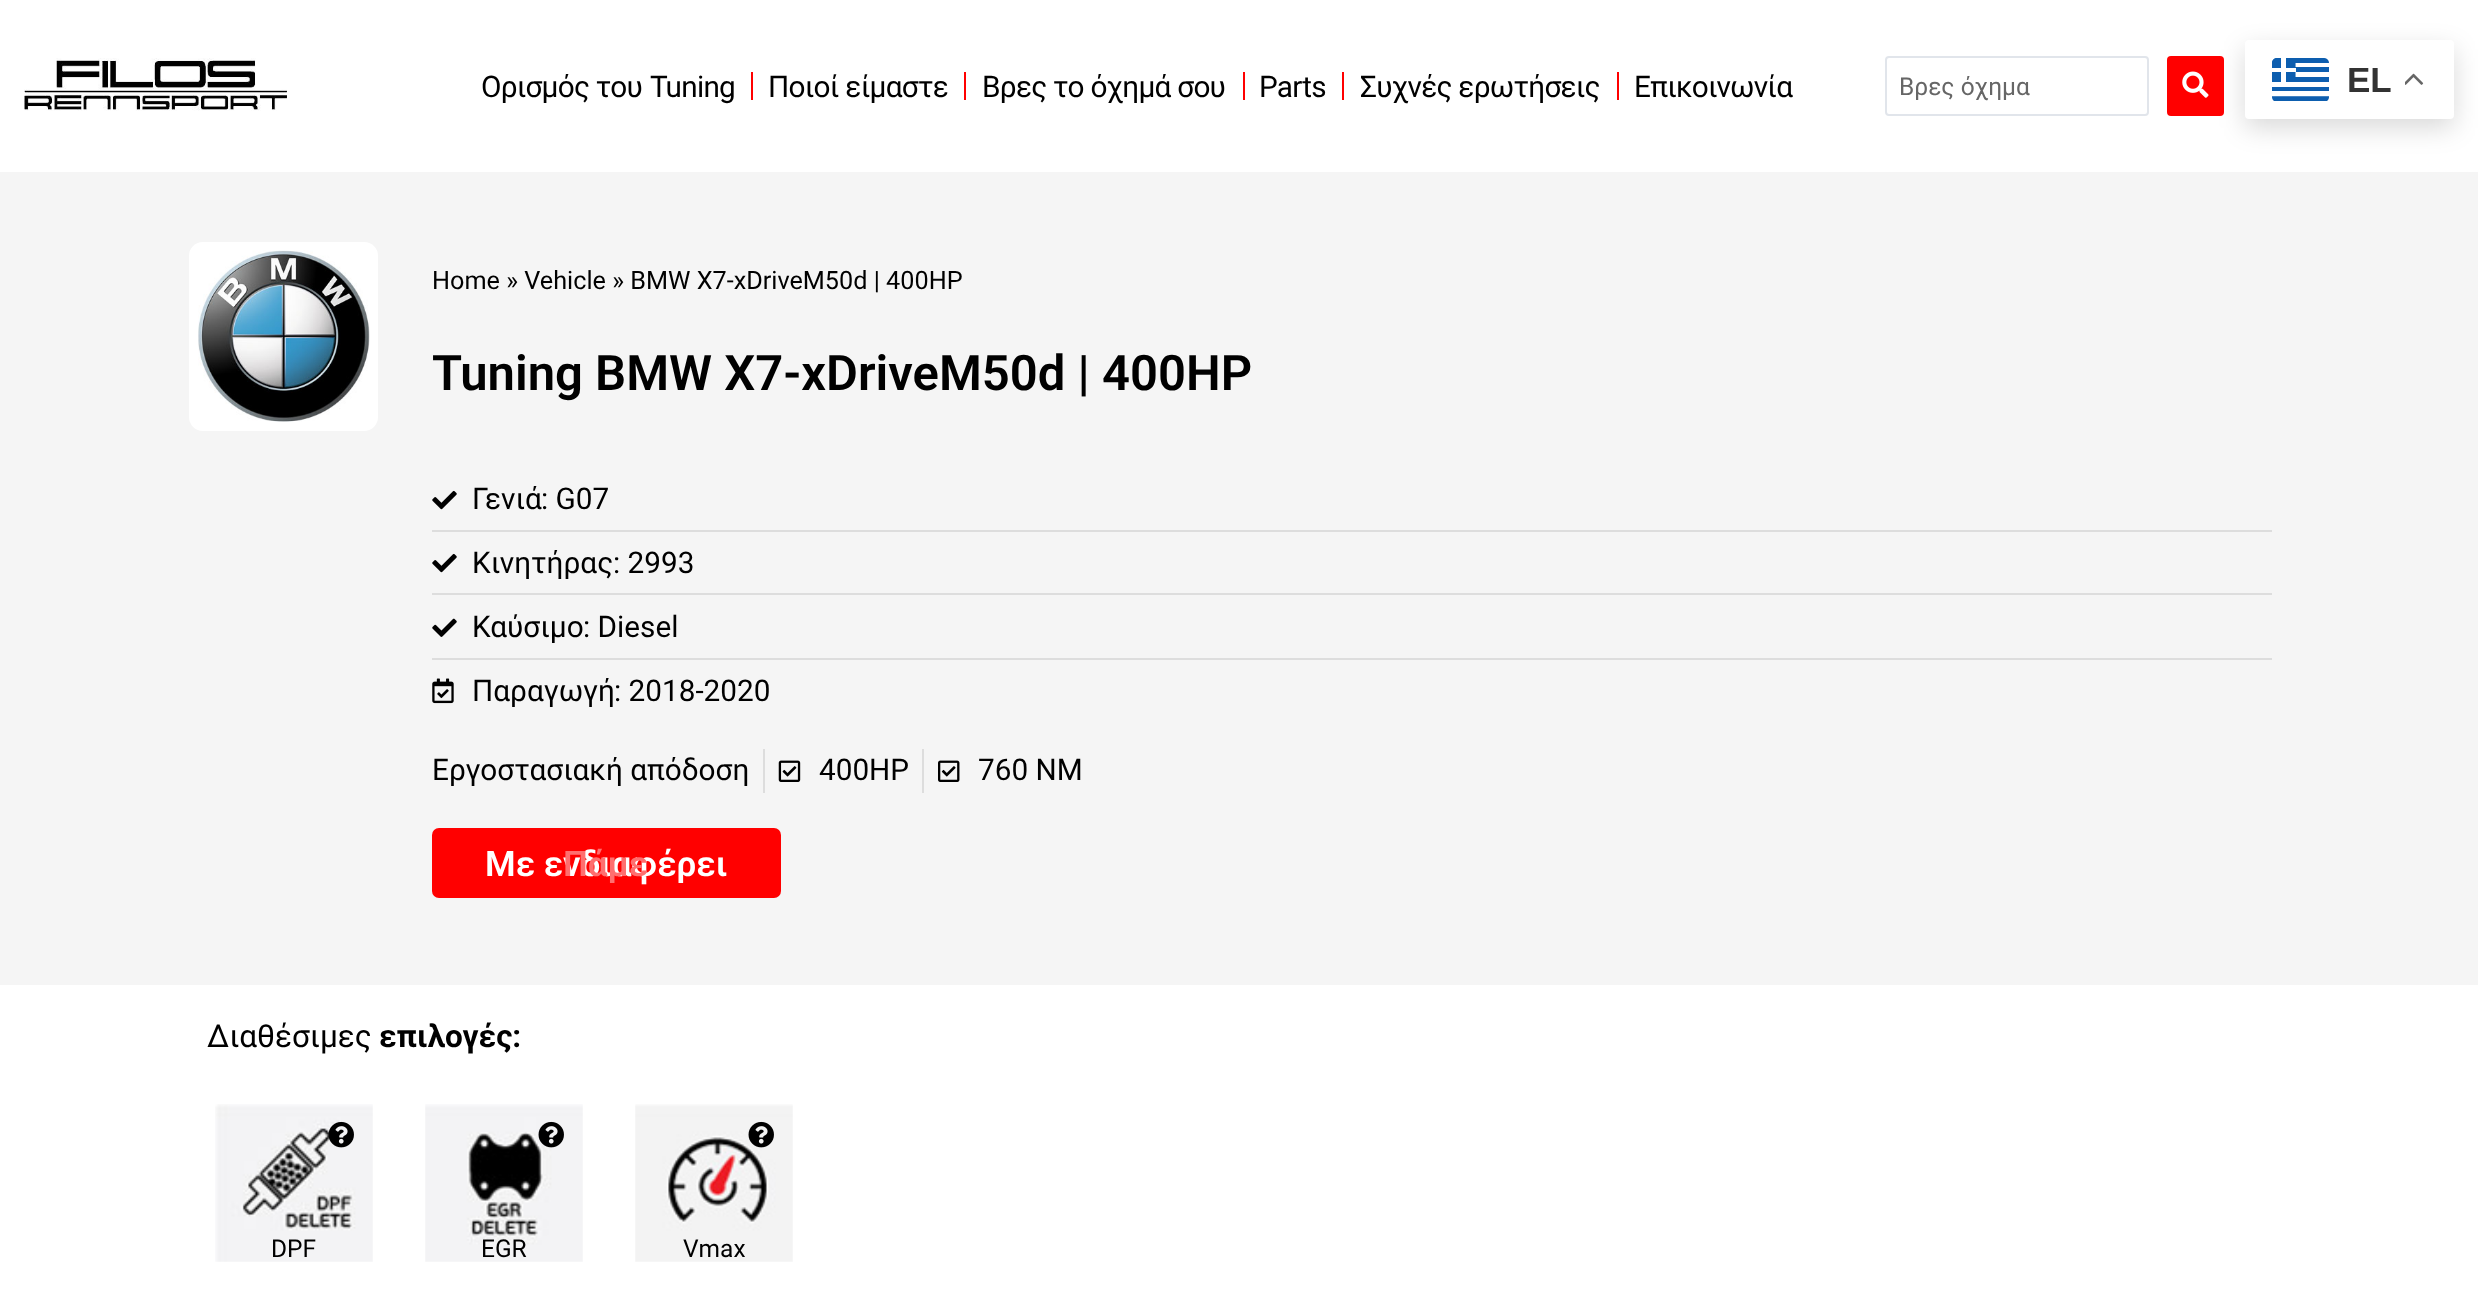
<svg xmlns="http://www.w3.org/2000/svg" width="2478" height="1303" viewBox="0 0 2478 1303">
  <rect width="100%" height="100%" fill="#fff"/>
  <image x="24" y="58" width="263" height="53" href="img/1.png"/>
  <path d="M751 72h2v28H751z" fill="#f00"/>
  <path d="M964 72h2v28H964z" fill="#f00"/>
  <path d="M1243 72h2v28H1243z" fill="#f00"/>
  <path d="M1342 72h2v28H1342z" fill="#f00"/>
  <path d="M1617 72h2v28H1617z" fill="#f00"/>
  <rect x="1886" y="57" width="262" height="58" rx="3" fill="none" stroke="#e1e5eb" stroke-width="2"/>
  <rect x="2167" y="56" width="57" height="60" rx="4" fill="#f00"/>
  <image x="2182" y="71" width="27" height="27" href="img/2.png"/>
  <rect x="2245" y="49" width="209" height="79" rx="4" fill="#00000026" filter="blur(13px)"/>
  <rect x="2245" y="40" width="209" height="79" rx="4" fill="#fff"/>
  <image x="2272" y="58" width="57" height="43" href="img/3.png"/>
  <image x="2405" y="73" width="19" height="12" href="img/4.png"/>
  <path d="M0 172h2478v813H0z" fill="#f5f5f5"/>
  <rect x="189" y="242" width="189" height="189" rx="14" fill="#fff"/>
  <image x="198" y="250" width="172" height="172" href="img/5.png"/>
  <image x="432" y="490" width="25" height="20" href="img/6.png"/>
  <path d="M432 530h1840v2H432z" fill="#ddd"/>
  <image x="432" y="553" width="25" height="20" href="img/6.png"/>
  <path d="M432 593h1840v2H432z" fill="#ddd"/>
  <image x="432" y="618" width="25" height="19" href="img/7.png"/>
  <path d="M432 658h1840v2H432z" fill="#ddd"/>
  <image x="432" y="678" width="22" height="26" href="img/8.png"/>
  <path d="M763 749h2v44H763z" fill="#ddd"/>
  <image x="778" y="760" width="23" height="22" href="img/9.png"/>
  <path d="M922 749h2v44H922z" fill="#ddd"/>
  <image x="938" y="760" width="22" height="22" href="img/10.png"/>
  <rect x="432" y="828" width="349" height="70" rx="7" fill="#f00"/>
  <image x="215" y="1104" width="158" height="158" href="img/11.png"/>
  <image x="328" y="1121" width="26" height="27" href="img/12.png"/>
  <image x="425" y="1104" width="158" height="158" href="img/13.png"/>
  <image x="538" y="1121" width="26" height="27" href="img/14.png"/>
  <image x="635" y="1104" width="158" height="158" href="img/15.png"/>
  <image x="748" y="1121" width="26" height="27" href="img/16.png"/>
  <text x="481" y="97" font-family="Roboto" font-size="29.75" letter-spacing="-0.75" fill="#000">Ορισμός του</text>
  <text x="650" y="97" font-family="'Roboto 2'" font-size="29.75" letter-spacing="-0.75" fill="#000">Tuning</text>
  <g font-family="Roboto" font-size="29.75" letter-spacing="-0.75" fill="#000">
    <text x="768" y="97">Ποιοί είμαστε</text>
    <text x="982" y="97">Βρες το όχημά σου</text>
  </g>
  <text x="1259" y="97" font-family="'Roboto 2'" font-size="29.75" letter-spacing="-0.75" fill="#000">Parts</text>
  <g font-family="Roboto" font-size="29.75" letter-spacing="-0.75" fill="#000">
    <text x="1360" y="97">Συχνές ερωτήσεις</text>
    <text x="1634" y="97">Επικοινωνία</text>
  </g>
  <text x="1899" y="95" font-family="Roboto" font-size="24.5" fill="#666">Βρες όχημα</text>
  <text x="2347" y="92" font-family="Liberation Sans" font-size="35" font-weight="bold" fill="#333">EL</text>
  <text x="432" y="289" font-family="'Roboto 2'" font-size="25.25" fill="#000">Home » Vehicle » BMW X7-xDriveM50d | 400HP</text>
  <text x="432" y="390" font-family="Roboto" font-size="49" font-weight="600" fill="#000">Tuning BMW X7-xDriveM50d | 400HP</text>
  <text x="472" y="509" font-family="Roboto" font-size="29.75" fill="#000">Γενιά</text>
  <text x="541" y="509" font-family="'Roboto 2'" font-size="29.75" fill="#000">: G07</text>
  <text x="472" y="573" font-family="Roboto" font-size="29.75" fill="#000">Κινητήρας</text>
  <text x="613" y="573" font-family="'Roboto 2'" font-size="29.75" fill="#000">: 2993</text>
  <text x="472" y="637" font-family="Roboto" font-size="29.75" fill="#000">Καύσιμο</text>
  <text x="583" y="637" font-family="'Roboto 2'" font-size="29.75" fill="#000">: Diesel</text>
  <text x="472" y="701" font-family="Roboto" font-size="29.75" fill="#000">Παραγωγή</text>
  <text x="614" y="701" font-family="'Roboto 2'" font-size="29.75" fill="#000">: 2018-2020</text>
  <text x="432" y="780" font-family="Roboto" font-size="29.75" fill="#000">Εργοστασιακή απόδοση</text>
  <g font-family="'Roboto 2'" font-size="29.75" fill="#000">
    <text x="819" y="780">400HP</text>
    <text x="978" y="780">760 NM</text>
  </g>
  <text x="485" y="876" font-family="Roboto" font-size="35" font-weight="600" fill="#fff">Με ενδιαφέρει</text>
  <text x="563" y="876" font-family="Roboto" font-size="35" font-weight="600" fill="#ff6f6f">Πάμε</text>
  <text x="207" y="1047" font-family="Roboto" font-size="31.5" fill="#000">Διαθέσιμες</text>
  <text x="379" y="1047" font-family="Roboto" font-size="31.5" font-weight="bold" fill="#000">επιλογές:</text>
  <g font-family="'Roboto 2'" font-size="24.5" fill="#000">
    <text x="271" y="1257">DPF</text>
    <text x="481" y="1257">EGR</text>
    <text x="683" y="1257">Vmax</text>
  </g>
</svg>
